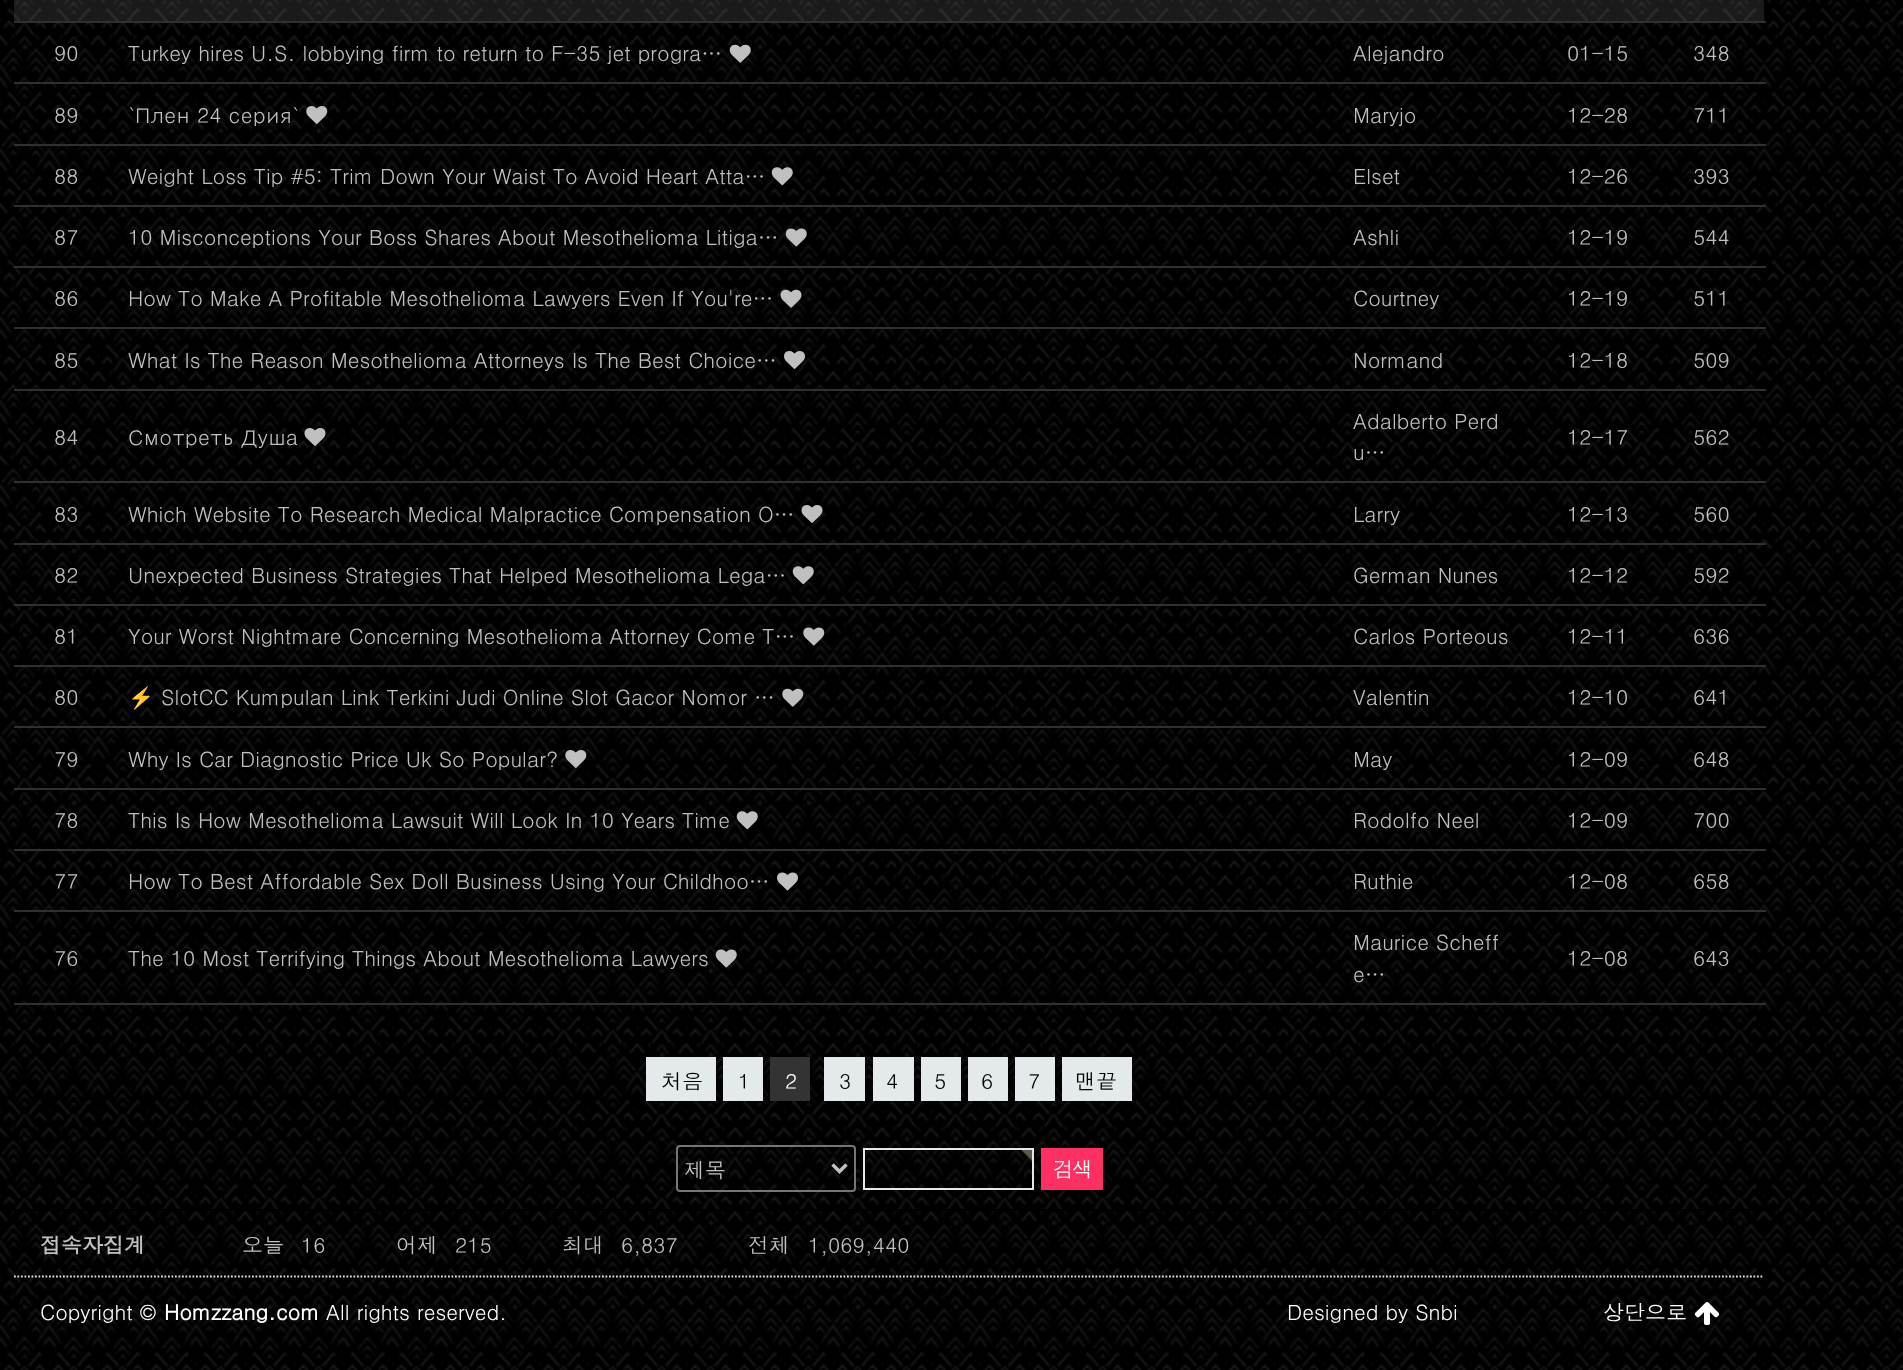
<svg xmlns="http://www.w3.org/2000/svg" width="1903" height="1370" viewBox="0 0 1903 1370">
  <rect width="100%" height="100%" fill="#fff"/>
  <image x="0" y="0" width="1903" height="1370" href="img/1.png"/>
  <path d="M14 0h105v21H14z" fill="#ffffff1a"/>
  <path d="M119 0h1225v21H119z" fill="#ffffff1a"/>
  <path d="M1344 0h193v21H1344z" fill="#ffffff1a"/>
  <path d="M1537 0h122v21H1537z" fill="#ffffff1a"/>
  <path d="M1659 0h105v21H1659z" fill="#ffffff1a"/>
  <image x="729" y="44" width="22" height="19" href="img/2.png"/>
  <path d="M14 21h1752v2H14z" fill="#2b3236"/>
  <image x="306" y="106" width="22" height="18" href="img/3.png"/>
  <path d="M14 82h1752v2H14z" fill="#2b3236"/>
  <image x="771" y="167" width="22" height="19" href="img/4.png"/>
  <path d="M14 144h1752v2H14z" fill="#2b3236"/>
  <image x="785" y="228" width="22" height="19" href="img/5.png"/>
  <path d="M14 205h1752v2H14z" fill="#2b3236"/>
  <image x="780" y="289" width="22" height="19" href="img/6.png"/>
  <path d="M14 266h1752v2H14z" fill="#2b3236"/>
  <image x="784" y="351" width="21" height="18" href="img/7.png"/>
  <path d="M14 327h1752v2H14z" fill="#2b3236"/>
  <image x="304" y="428" width="22" height="18" href="img/8.png"/>
  <path d="M14 389h1752v2H14z" fill="#2b3236"/>
  <image x="801" y="505" width="22" height="18" href="img/9.png"/>
  <path d="M14 481h1752v2H14z" fill="#2b3236"/>
  <image x="792" y="566" width="22" height="19" href="img/10.png"/>
  <path d="M14 543h1752v2H14z" fill="#2b3236"/>
  <image x="803" y="627" width="22" height="19" href="img/11.png"/>
  <path d="M14 604h1752v2H14z" fill="#2b3236"/>
  <image x="782" y="688" width="22" height="19" href="img/12.png"/>
  <path d="M14 665h1752v2H14z" fill="#2b3236"/>
  <image x="565" y="750" width="22" height="18" href="img/13.png"/>
  <path d="M14 726h1752v2H14z" fill="#2b3236"/>
  <image x="736" y="811" width="22" height="19" href="img/14.png"/>
  <path d="M14 788h1752v2H14z" fill="#2b3236"/>
  <image x="777" y="872" width="21" height="19" href="img/15.png"/>
  <path d="M14 849h1752v2H14z" fill="#2b3236"/>
  <image x="715" y="949" width="22" height="19" href="img/16.png"/>
  <path d="M14 910h1752v2H14z" fill="#2b3236"/>
  <path d="M14 1003h1752v2H14z" fill="#2b3236"/>
  <path d="M646 1057h70v44H646z" fill="#e4eaec"/>
  <path d="M723 1057h40v44H723z" fill="#e4eaec"/>
  <path d="M770 1057h40v44H770z" fill="#333"/>
  <path d="M824 1057h41v44H824z" fill="#e4eaec"/>
  <path d="M873 1057h41v44H873z" fill="#e4eaec"/>
  <path d="M921 1057h40v44H921z" fill="#e4eaec"/>
  <path d="M968 1057h40v44H968z" fill="#e4eaec"/>
  <path d="M1015 1057h40v44H1015z" fill="#e4eaec"/>
  <path d="M1062 1057h70v44H1062z" fill="#e4eaec"/>
  <rect x="677" y="1146" width="178" height="45" rx="3" fill="none" stroke="#767676" stroke-width="2"/>
  <path d="M832.5 1164.5L839.5 1171.5L846.5 1164.5" fill="none" stroke="#c0c0c0" stroke-width="3.5"/>
  <image x="1022" y="1150" width="10" height="11" href="img/17.png"/>
  <path d="M864 1149h169v40H864z" fill="none" stroke="#e4eaec" stroke-width="2"/>
  <path d="M1041 1148h62v42H1041z" fill="#ff3061"/>
  <path d="M14 1209h1737v2H14z" fill="#000"/>
  <path d="M14 1276.5H1764" fill="none" stroke="#dde4e9" stroke-width="1.8" stroke-dasharray="1.75 1.75"/>
  <image x="1694" y="1302" width="26" height="23" href="img/18.png"/>
  <g font-family="Dotum" font-size="21" fill="#c0c0c0">
    <text x="54" y="61">90</text>
    <text x="128" y="61">Turkey hires U.S. lobbying firm to return to F-35 jet progra…</text>
    <text x="1353" y="61">Alejandro</text>
    <text x="1567" y="61">01-15</text>
    <text x="1693" y="61">348</text>
    <text x="54" y="123">89</text>
    <text x="128" y="123">`Плен 24 серия`</text>
    <text x="1353" y="123">Maryjo</text>
    <text x="1567" y="123">12-28</text>
    <text x="1693" y="123">711</text>
    <text x="54" y="184">88</text>
    <text x="128" y="184">Weight Loss Tip #5: Trim Down Your Waist To Avoid Heart Atta…</text>
    <text x="1353" y="184">Elset</text>
    <text x="1567" y="184">12-26</text>
    <text x="1693" y="184">393</text>
    <text x="54" y="245">87</text>
    <text x="128" y="245">10 Misconceptions Your Boss Shares About Mesothelioma Litiga…</text>
    <text x="1353" y="245">Ashli</text>
    <text x="1567" y="245">12-19</text>
    <text x="1693" y="245">544</text>
    <text x="54" y="306">86</text>
    <text x="128" y="306">How To Make A Profitable Mesothelioma Lawyers Even If You're…</text>
    <text x="1353" y="306">Courtney</text>
    <text x="1567" y="306">12-19</text>
    <text x="1693" y="306">511</text>
    <text x="54" y="368">85</text>
    <text x="128" y="368">What Is The Reason Mesothelioma Attorneys Is The Best Choice…</text>
    <text x="1353" y="368">Normand</text>
    <text x="1567" y="368">12-18</text>
    <text x="1693" y="368">509</text>
    <text x="54" y="445">84</text>
    <text x="128" y="445">Смотреть Душа</text>
    <text x="1353" y="429">Adalberto Perd</text>
    <text x="1353" y="460">u…</text>
    <text x="1567" y="445">12-17</text>
    <text x="1693" y="445">562</text>
    <text x="54" y="522">83</text>
    <text x="128" y="522">Which Website To Research Medical Malpractice Compensation O…</text>
    <text x="1353" y="522">Larry</text>
    <text x="1567" y="522">12-13</text>
    <text x="1693" y="522">560</text>
    <text x="54" y="583">82</text>
    <text x="128" y="583">Unexpected Business Strategies That Helped Mesothelioma Lega…</text>
    <text x="1353" y="583">German Nunes</text>
    <text x="1567" y="583">12-12</text>
    <text x="1693" y="583">592</text>
    <text x="54" y="644">81</text>
    <text x="128" y="644">Your Worst Nightmare Concerning Mesothelioma Attorney Come T…</text>
    <text x="1353" y="644">Carlos Porteous</text>
    <text x="1567" y="644">12-11</text>
    <text x="1693" y="644">636</text>
    <text x="54" y="705">80</text>
  </g>
  <text x="128" y="705" font-family="Noto Color Emoji" font-size="21" fill="#c0c0c0">⚡</text>
  <g font-family="Dotum" font-size="21" fill="#c0c0c0">
    <text x="161" y="705">SlotCC Kumpulan Link Terkini Judi Online Slot Gacor Nomor …</text>
    <text x="1353" y="705">Valentin</text>
    <text x="1567" y="705">12-10</text>
    <text x="1693" y="705">641</text>
    <text x="54" y="767">79</text>
    <text x="128" y="767">Why Is Car Diagnostic Price Uk So Popular?</text>
    <text x="1353" y="767">May</text>
    <text x="1567" y="767">12-09</text>
    <text x="1693" y="767">648</text>
    <text x="54" y="828">78</text>
    <text x="128" y="828">This Is How Mesothelioma Lawsuit Will Look In 10 Years Time</text>
    <text x="1353" y="828">Rodolfo Neel</text>
    <text x="1567" y="828">12-09</text>
    <text x="1693" y="828">700</text>
    <text x="54" y="889">77</text>
    <text x="128" y="889">How To Best Affordable Sex Doll Business Using Your Childhoo…</text>
    <text x="1353" y="889">Ruthie</text>
    <text x="1567" y="889">12-08</text>
    <text x="1693" y="889">658</text>
    <text x="54" y="966">76</text>
    <text x="128" y="966">The 10 Most Terrifying Things About Mesothelioma Lawyers</text>
    <text x="1353" y="950">Maurice Scheff</text>
    <text x="1353" y="982">e…</text>
    <text x="1567" y="966">12-08</text>
    <text x="1693" y="966">643</text>
  </g>
  <g font-family="Dotum" font-size="21" fill="#000">
    <text x="661" y="1089">처음</text>
    <text x="738" y="1089">1</text>
  </g>
  <text x="785" y="1089" font-family="Dotum" font-size="21" fill="#fff">2</text>
  <g font-family="Dotum" font-size="21" fill="#000">
    <text x="839" y="1089">3</text>
    <text x="886" y="1089">4</text>
    <text x="934" y="1089">5</text>
    <text x="981" y="1089">6</text>
    <text x="1028" y="1089">7</text>
    <text x="1075" y="1089">맨끝</text>
  </g>
  <text x="684" y="1178" font-family="Dotum" font-size="21" fill="#c0c0c0">제목</text>
  <text x="1053" y="1177" font-family="Dotum" font-size="21" letter-spacing="-2" fill="#fff">검색</text>
  <text x="40" y="1253" font-family="Dotum" font-size="21" font-weight="bold" fill="#c0c0c0">접속자집계</text>
  <g font-family="Dotum" font-size="21" fill="#c0c0c0">
    <text x="242" y="1253">오늘</text>
    <text x="301" y="1253">16</text>
    <text x="396" y="1253">어제</text>
    <text x="455" y="1253">215</text>
    <text x="562" y="1253">최대</text>
    <text x="621" y="1253">6,837</text>
    <text x="748" y="1253">전체</text>
    <text x="808" y="1253">1,069,440</text>
  </g>
  <text x="40" y="1320" font-family="Dotum" font-size="21" fill="#fff">Copyright ©</text>
  <text x="164" y="1320" font-family="Dotum" font-size="21" font-weight="bold" fill="#fff">Homzzang.com</text>
  <g font-family="Dotum" font-size="21" fill="#fff">
    <text x="326" y="1320">All rights reserved.</text>
    <text x="1287" y="1320">Designed by Snbi</text>
    <text x="1603" y="1320">상단으로</text>
  </g>
</svg>
